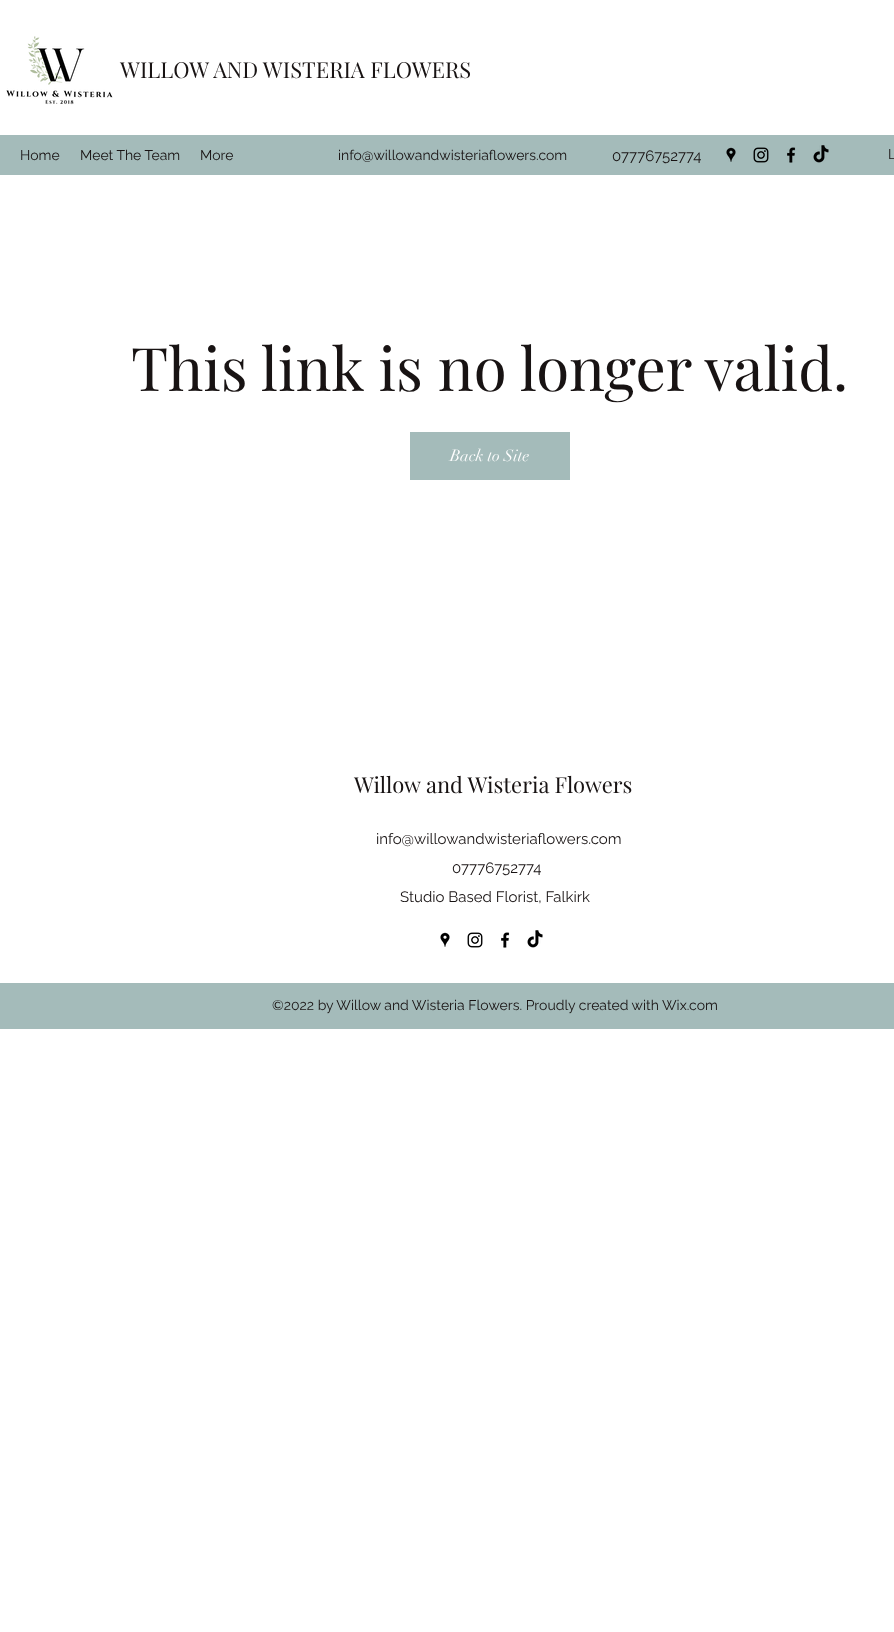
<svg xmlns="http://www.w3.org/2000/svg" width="894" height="1632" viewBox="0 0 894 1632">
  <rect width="100%" height="100%" fill="#fff"/>
  <image x="6" y="36" width="107" height="69" href="img/1.png"/>
  <path d="M0 135h894v40H0z" fill="#a4bbba"/>
  <image x="726" y="147" width="10" height="15" href="img/2.png"/>
  <image x="753" y="147" width="16" height="16" href="img/3.png"/>
  <image x="787" y="147" width="9" height="16" href="img/4.png"/>
  <image x="813" y="145" width="16" height="18" href="img/5.png"/>
  <path d="M410 432h160v48H410z" fill="#a4bbba"/>
  <image x="440" y="932" width="10" height="15" href="img/6.png"/>
  <image x="467" y="932" width="16" height="16" href="img/7.png"/>
  <image x="501" y="932" width="9" height="16" href="img/8.png"/>
  <image x="527" y="930" width="16" height="18" href="img/9.png"/>
  <path d="M0 983h894v46H0z" fill="#a4bbba"/>
  <text x="120" y="78" font-family="Playfair Display" font-size="22" fill="#181313">WILLOW AND WISTERIA FLOWERS</text>
  <g font-family="Raleway" font-size="14" fill="#181313">
    <text x="20" y="160">Home</text>
    <text x="80" y="160">Meet The Team</text>
    <text x="200" y="160">More</text>
    <text x="338" y="160">info@willowandwisteriaflowers.com</text>
  </g>
  <text x="612" y="161" font-family="Raleway" font-size="15" fill="#181313">07776752774</text>
  <text x="888" y="159" font-family="Raleway" font-size="14" fill="#181313">L</text>
  <text x="131" y="391" font-family="Playfair Display" font-size="60" fill="#181313">This link is no longer valid.</text>
  <text x="450" y="461" font-family="didot" font-size="16" fill="#fff">Back to Site</text>
  <text x="354" y="793" font-family="Playfair Display" font-size="22" fill="#181313">Willow and Wisteria Flowers</text>
  <g font-family="Raleway" font-size="15" fill="#181313">
    <text x="376" y="844">info@willowandwisteriaflowers.com</text>
    <text x="452" y="873">07776752774</text>
    <text x="400" y="902">Studio Based Florist, Falkirk</text>
  </g>
  <text x="272" y="1010" font-family="Raleway" font-size="14" fill="#181313">©2022 by Willow and Wisteria Flowers. Proudly created with Wix.com</text>
</svg>
